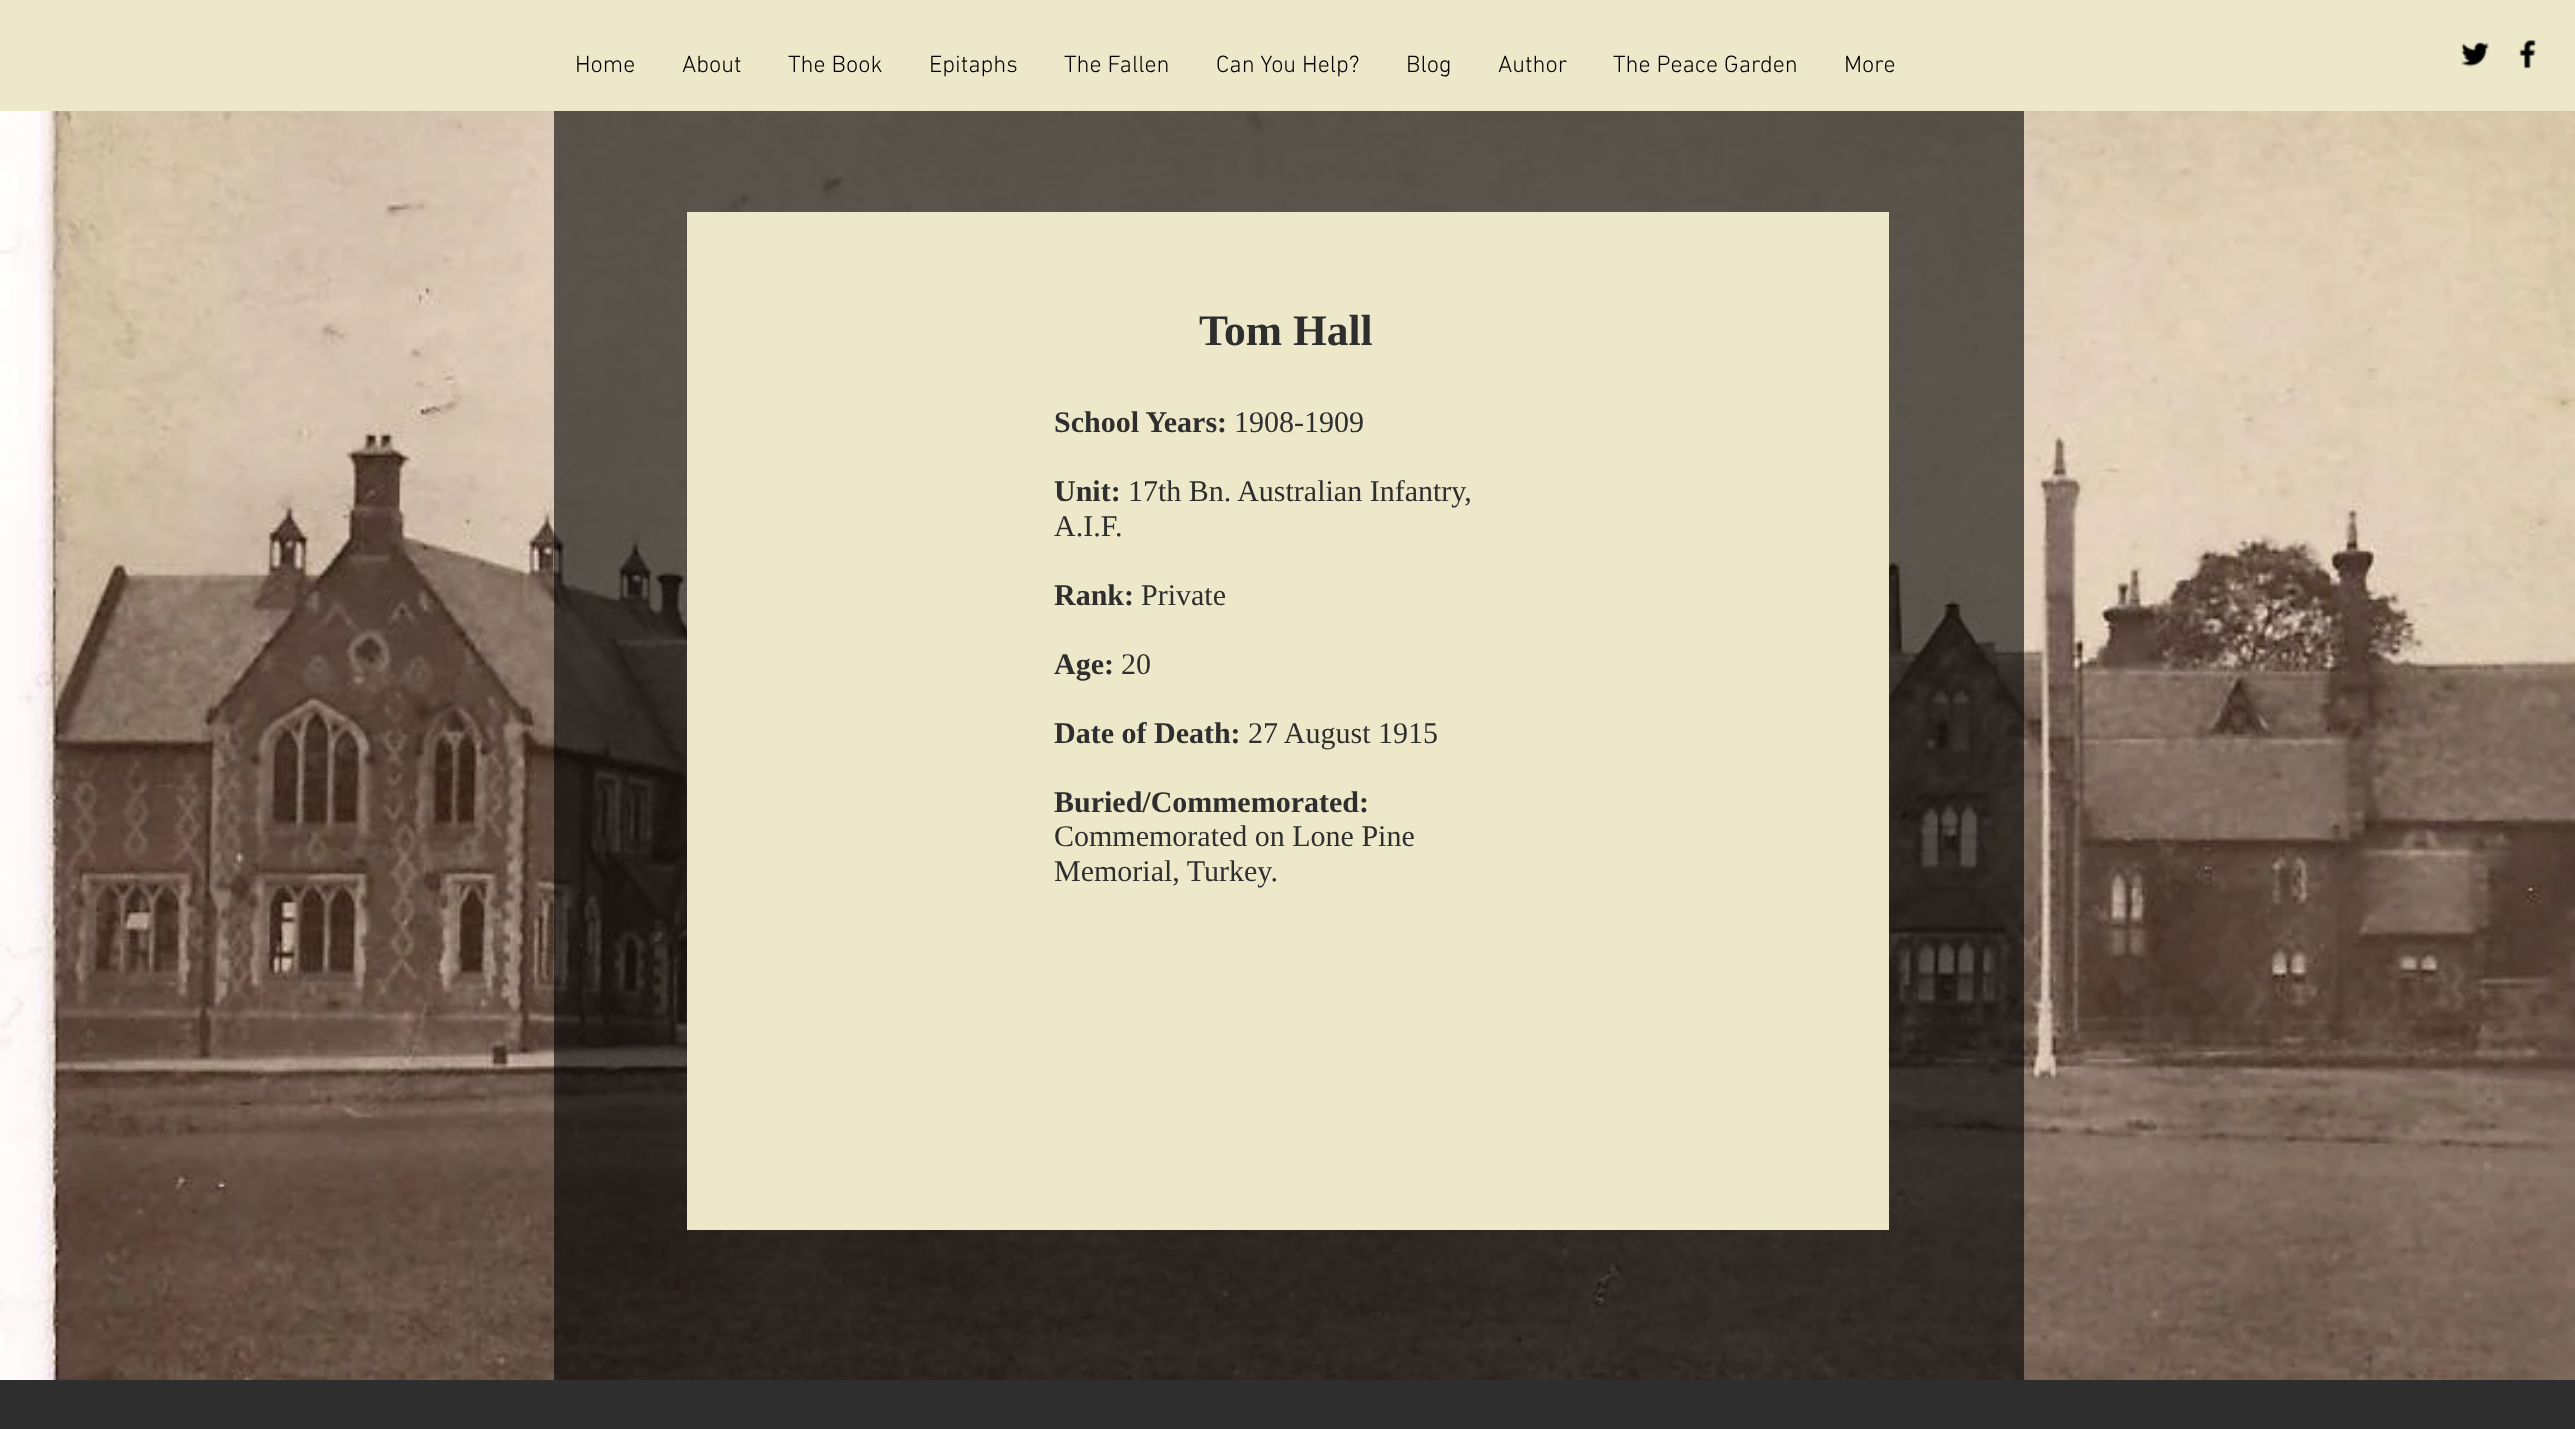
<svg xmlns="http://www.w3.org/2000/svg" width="2575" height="1429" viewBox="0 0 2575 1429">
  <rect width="100%" height="100%" fill="#fff"/>
  <path d="M0 0h2575v111H0z" fill="#ede8c9"/>
  <image x="2461" y="41" width="28" height="26" href="img/1.png"/>
  <image x="2519" y="40" width="17" height="29" href="img/2.png"/>
  <image x="0" y="111" width="2575" height="1269" href="img/3.png"/>
  <path d="M554 111h1470v1269H554z" fill="#00000099"/>
  <path d="M687 212h1202v1018H687z" fill="#ede8c9"/>
  <path d="M0 1380h2575v49H0z" fill="#2f2e2e"/>
  <g font-family="'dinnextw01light'" font-size="24" font-weight="300" fill="#000">
    <text x="575" y="72">Home</text>
    <text x="682" y="72">About</text>
    <text x="788" y="72">The Book</text>
    <text x="929" y="72">Epitaphs</text>
    <text x="1064" y="72">The Fallen</text>
    <text x="1216" y="72">Can You Help?</text>
    <text x="1406" y="72">Blog</text>
    <text x="1498" y="72">Author</text>
    <text x="1613" y="72">The Peace Garden</text>
    <text x="1844" y="72">More</text>
  </g>
  <text x="1199" y="345" font-family="Liberation Serif" font-size="43.5" font-weight="bold" fill="#2f2e2e">Tom Hall</text>
  <text x="1054" y="432" font-family="Liberation Serif" font-size="30" font-weight="bold" fill="#2f2e2e">School Years:</text>
  <text x="1234" y="432" font-family="Liberation Serif" font-size="30" fill="#2f2e2e">1908-1909</text>
  <text x="1054" y="501" font-family="Liberation Serif" font-size="30" font-weight="bold" fill="#2f2e2e">Unit:</text>
  <g font-family="Liberation Serif" font-size="30" fill="#2f2e2e">
    <text x="1128" y="501">17th Bn. Australian Infantry,</text>
    <text x="1054" y="536">A.I.F.</text>
  </g>
  <text x="1054" y="605" font-family="Liberation Serif" font-size="30" font-weight="bold" fill="#2f2e2e">Rank:</text>
  <text x="1141" y="605" font-family="Liberation Serif" font-size="30" fill="#2f2e2e">Private</text>
  <text x="1054" y="674" font-family="Liberation Serif" font-size="30" font-weight="bold" fill="#2f2e2e">Age:</text>
  <text x="1121" y="674" font-family="Liberation Serif" font-size="30" fill="#2f2e2e">20</text>
  <text x="1054" y="743" font-family="Liberation Serif" font-size="30" font-weight="bold" fill="#2f2e2e">Date of Death:</text>
  <text x="1248" y="743" font-family="Liberation Serif" font-size="30" fill="#2f2e2e">27 August 1915</text>
  <text x="1054" y="812" font-family="Liberation Serif" font-size="30" font-weight="bold" fill="#2f2e2e">Buried/Commemorated:</text>
  <g font-family="Liberation Serif" font-size="30" fill="#2f2e2e">
    <text x="1054" y="846">Commemorated on Lone Pine</text>
    <text x="1054" y="881">Memorial, Turkey.</text>
  </g>
</svg>
